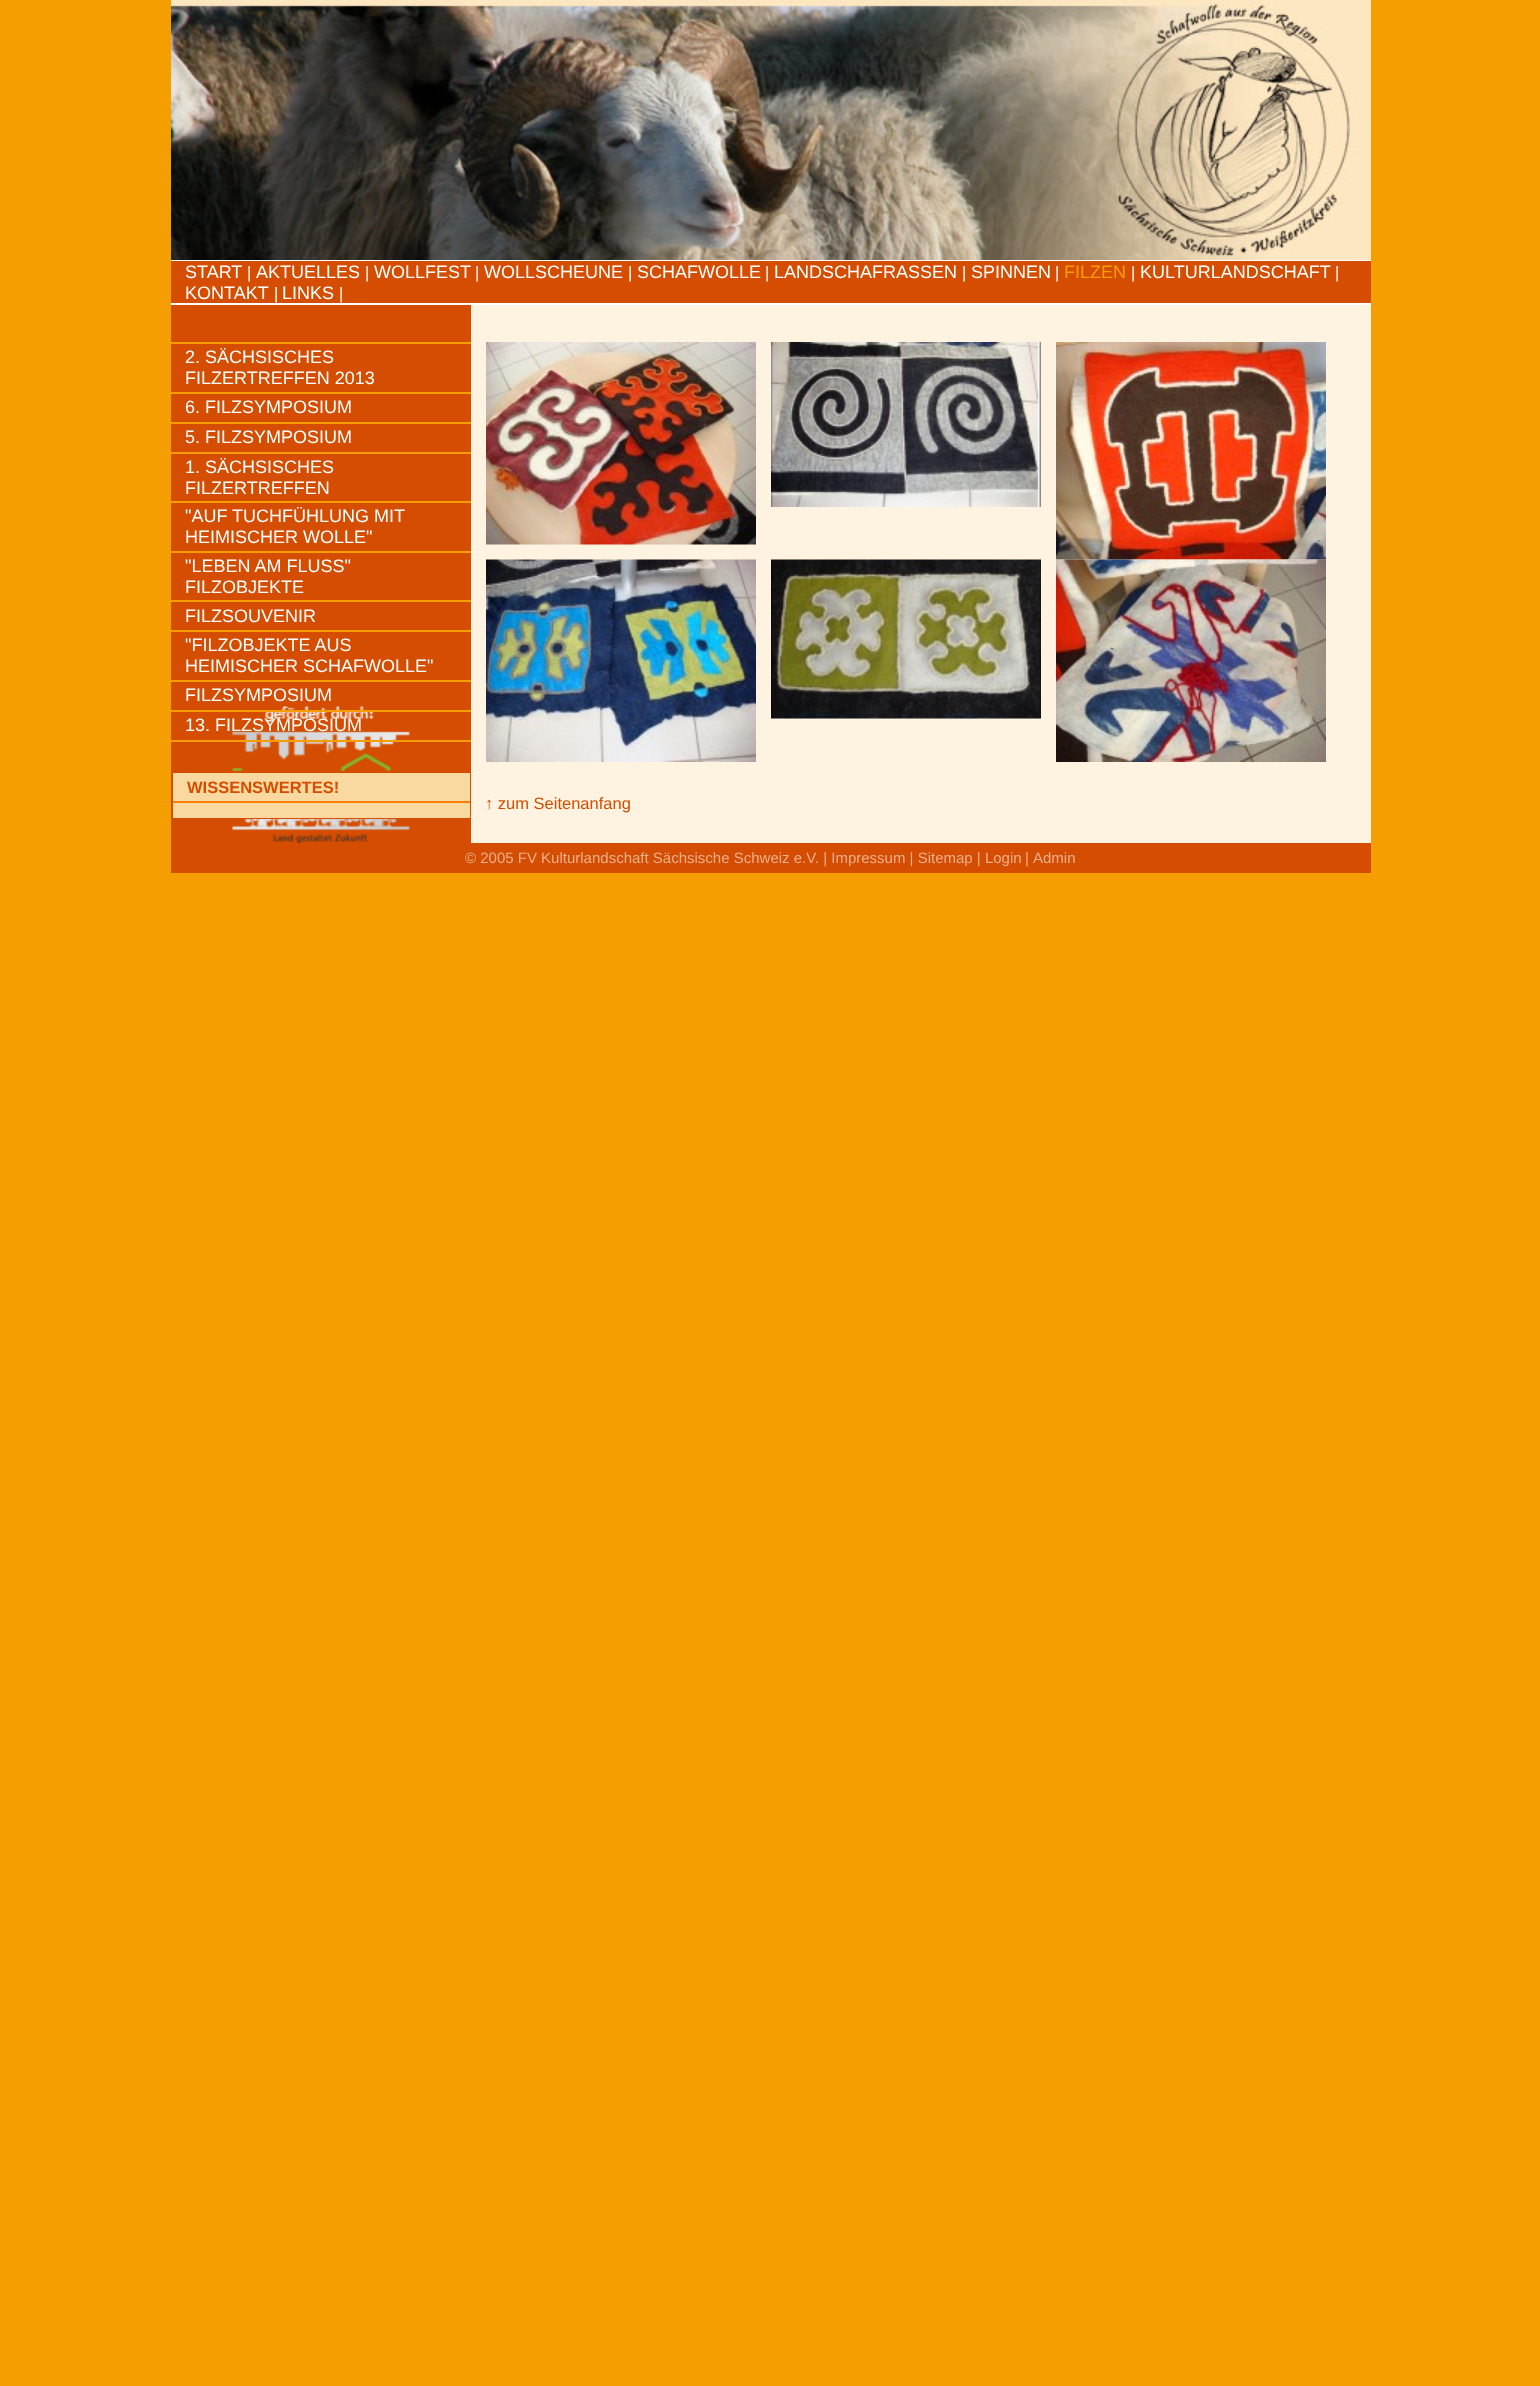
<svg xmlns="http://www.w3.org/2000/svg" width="1540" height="2386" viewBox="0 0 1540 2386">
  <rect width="100%" height="100%" fill="#f59e02"/>
  <image x="171" y="0" width="1200" height="260" href="img/1.png"/>
  <path d="M171 260h1200v1H171z" fill="#fff"/>
  <path d="M171 261h1200v42H171z" fill="#d44d00"/>
  <path d="M171 303h1200v2H171z" fill="#fff"/>
  <path d="M171 305h300v538H171z" fill="#d44d00"/>
  <image x="232" y="706" width="178" height="137" href="img/2.png"/>
  <path d="M171 342h300v2H171z" fill="#f59e02"/>
  <path d="M171 392h300v2H171z" fill="#f59e02"/>
  <path d="M171 422h300v2H171z" fill="#f59e02"/>
  <path d="M171 452h300v2H171z" fill="#f59e02"/>
  <path d="M171 501h300v2H171z" fill="#f59e02"/>
  <path d="M171 551h300v2H171z" fill="#f59e02"/>
  <path d="M171 600h300v2H171z" fill="#f59e02"/>
  <path d="M171 630h300v2H171z" fill="#f59e02"/>
  <path d="M171 680h300v2H171z" fill="#f59e02"/>
  <path d="M171 710h300v2H171z" fill="#f59e02"/>
  <path d="M171 740h300v2H171z" fill="#f59e02"/>
  <path d="M172 772h298v46H172z" fill="none" stroke="#d44d00" stroke-width="2"/>
  <path d="M173 773h297v28H173z" fill="#f9d99f"/>
  <path d="M173 801h297v2H173z" fill="#f6800b"/>
  <path d="M173 803h297v15H173z" fill="#f9d99f"/>
  <path d="M471 305h900v538H471z" fill="#fef3e0"/>
  <image x="486" y="342" width="270" height="203" href="img/3.png"/>
  <image x="771" y="342" width="270" height="165" href="img/4.png"/>
  <image x="1056" y="342" width="270" height="218" href="img/5.png"/>
  <image x="486" y="559" width="270" height="203" href="img/6.png"/>
  <image x="771" y="559" width="270" height="160" href="img/7.png"/>
  <image x="1056" y="559" width="270" height="203" href="img/8.png"/>
  <path d="M171 843h1200v30H171z" fill="#d44d00"/>
  <text x="185" y="278" font-family="Liberation Sans" font-size="18" fill="#fff">START</text>
  <text x="247" y="278" font-family="Liberation Sans" font-size="16.5" fill="#fff">|</text>
  <text x="256" y="278" font-family="Liberation Sans" font-size="18" fill="#fff">AKTUELLES</text>
  <text x="365" y="278" font-family="Liberation Sans" font-size="16.5" fill="#fff">|</text>
  <text x="374" y="278" font-family="Liberation Sans" font-size="18" fill="#fff">WOLLFEST</text>
  <text x="475" y="278" font-family="Liberation Sans" font-size="16.5" fill="#fff">|</text>
  <text x="484" y="278" font-family="Liberation Sans" font-size="18" fill="#fff">WOLLSCHEUNE</text>
  <text x="628" y="278" font-family="Liberation Sans" font-size="16.5" fill="#fff">|</text>
  <text x="637" y="278" font-family="Liberation Sans" font-size="18" fill="#fff">SCHAFWOLLE</text>
  <text x="765" y="278" font-family="Liberation Sans" font-size="16.5" fill="#fff">|</text>
  <text x="774" y="278" font-family="Liberation Sans" font-size="18" fill="#fff">LANDSCHAFRASSEN</text>
  <text x="962" y="278" font-family="Liberation Sans" font-size="16.5" fill="#fff">|</text>
  <text x="971" y="278" font-family="Liberation Sans" font-size="18" fill="#fff">SPINNEN</text>
  <text x="1055" y="278" font-family="Liberation Sans" font-size="16.5" fill="#fff">|</text>
  <text x="1064" y="278" font-family="Liberation Sans" font-size="18" fill="#f59e02">FILZEN</text>
  <text x="1131" y="278" font-family="Liberation Sans" font-size="16.5" fill="#fff">|</text>
  <text x="1140" y="278" font-family="Liberation Sans" font-size="18" fill="#fff">KULTURLANDSCHAFT</text>
  <text x="1335" y="278" font-family="Liberation Sans" font-size="16.5" fill="#fff">|</text>
  <text x="185" y="299" font-family="Liberation Sans" font-size="18" fill="#fff">KONTAKT</text>
  <text x="274" y="299" font-family="Liberation Sans" font-size="16.5" fill="#fff">|</text>
  <text x="282" y="299" font-family="Liberation Sans" font-size="18" fill="#fff">LINKS</text>
  <text x="339" y="299" font-family="Liberation Sans" font-size="16.5" fill="#fff">|</text>
  <g font-family="Liberation Sans" font-size="18" fill="#fff">
    <text x="185" y="363">2. SÄCHSISCHES</text>
    <text x="185" y="384">FILZERTREFFEN 2013</text>
    <text x="185" y="413">6. FILZSYMPOSIUM</text>
    <text x="185" y="443">5. FILZSYMPOSIUM</text>
    <text x="185" y="473">1. SÄCHSISCHES</text>
    <text x="185" y="494">FILZERTREFFEN</text>
    <text x="185" y="522">"AUF TUCHFÜHLUNG MIT</text>
    <text x="185" y="543">HEIMISCHER WOLLE"</text>
    <text x="185" y="572">"LEBEN AM FLUSS"</text>
    <text x="185" y="593">FILZOBJEKTE</text>
    <text x="185" y="622">FILZSOUVENIR</text>
    <text x="185" y="651">"FILZOBJEKTE AUS</text>
    <text x="185" y="672">HEIMISCHER SCHAFWOLLE"</text>
    <text x="185" y="701">FILZSYMPOSIUM</text>
    <text x="185" y="731">13. FILZSYMPOSIUM</text>
  </g>
  <text x="187" y="793" font-family="Liberation Sans" font-size="16.5" font-weight="bold" fill="#d44d00">WISSENSWERTES!</text>
  <text x="485" y="809" font-family="Liberation Sans" font-size="16.5" fill="#d44d00">↑ zum Seitenanfang</text>
  <g font-family="Liberation Sans" font-size="15" fill="#ecaf8c">
    <text x="465" y="863">© 2005 FV Kulturlandschaft Sächsische Schweiz e.V. | Impressum | Sitemap | Login</text>
    <text x="1025" y="863">|</text>
    <text x="1033" y="863">Admin</text>
  </g>
</svg>
